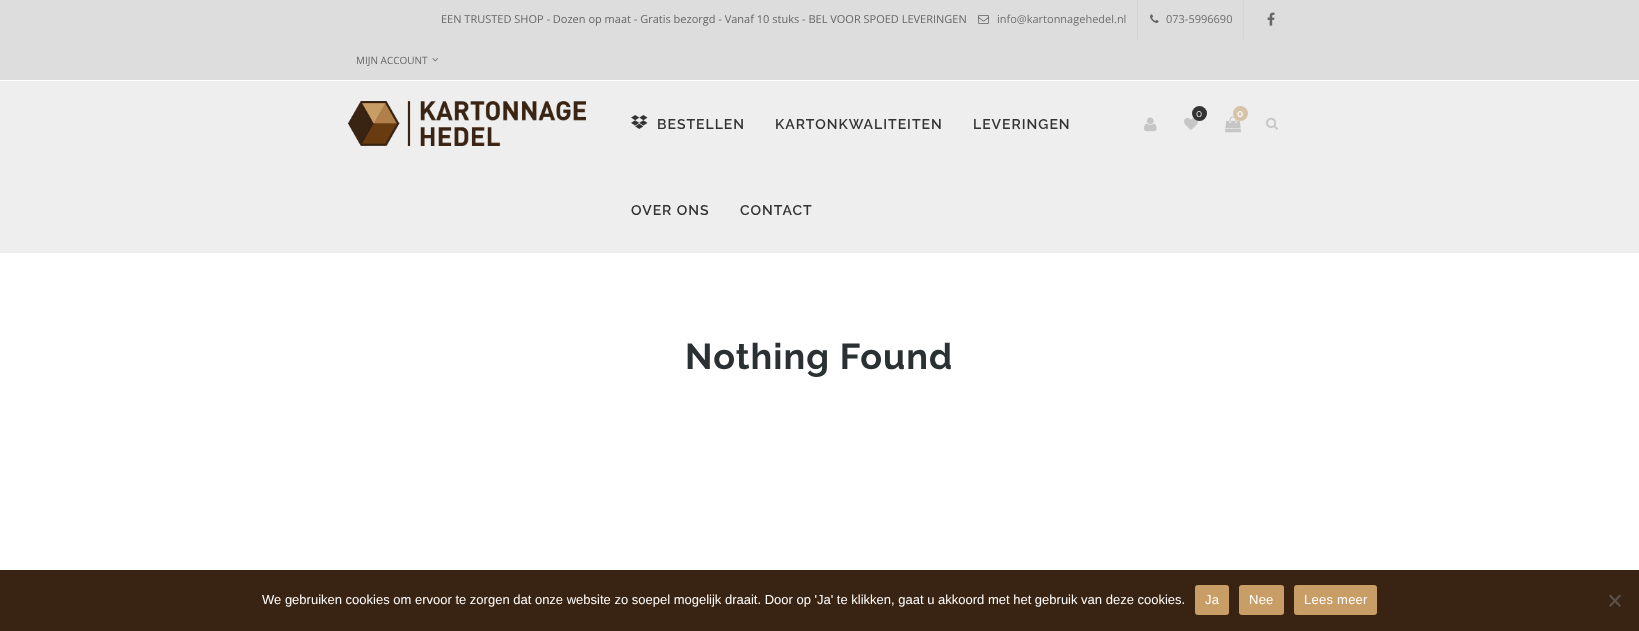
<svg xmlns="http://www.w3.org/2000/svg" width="1639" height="631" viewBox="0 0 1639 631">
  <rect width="100%" height="100%" fill="#fff"/>
  <path d="M0 81h1639v172H0z" fill="#eee"/>
  <path d="M0 0h1639v80H0z" fill="#ddd"/>
  <path d="M1137 0h1v40H1137z" fill="#d6d6d6"/>
  <image x="978" y="15" width="11" height="9" href="img/1.png"/>
  <path d="M1243 0h1v40H1243z" fill="#d6d6d6"/>
  <image x="1150" y="14" width="9" height="9" href="img/2.png"/>
  <image x="1267" y="12" width="8" height="14" href="img/3.png"/>
  <image x="432" y="58" width="6" height="4" href="img/4.png"/>
  <image x="348" y="101" width="238" height="45" href="img/5.png"/>
  <image x="1184" y="118" width="14" height="12" href="img/6.png"/>
  <circle cx="1199.5" cy="113.5" r="7.5" fill="#333"/>
  <image x="1225" y="116" width="16" height="17" href="img/7.png"/>
  <circle cx="1240.5" cy="113.5" r="7.5" fill="#d6c3a8"/>
  <image x="1144" y="117" width="13" height="15" href="img/8.png"/>
  <image x="1266" y="117" width="12" height="13" href="img/9.png"/>
  <image x="631" y="115" width="17" height="14" href="img/10.png"/>
  <path d="M0 570h1639v61H0z" fill="#392312"/>
  <rect x="1195" y="585" width="34" height="30" rx="3" fill="#c99d66"/>
  <rect x="1239" y="585" width="45" height="30" rx="3" fill="#c99d66"/>
  <rect x="1294" y="585" width="83" height="30" rx="3" fill="#c99d66"/>
  <path d="M1619.5 594.5L1621 596L1610.5 607L1609 605.5Z" fill="#5d5249"/>
  <path d="M1609 596L1610.5 594.5L1621 605.5L1619.5 607Z" fill="#5d5249"/>
  <text x="441" y="23" font-family="Open Sans" font-size="11" fill="#666">EEN TRUSTED SHOP - Dozen op maat - Gratis bezorgd - Vanaf 10 stuks - BEL VOOR SPOED LEVERINGEN</text>
  <g font-family="Open Sans" font-size="11" fill="#6f6f6f">
    <text x="997" y="23">info@kartonnagehedel.nl</text>
    <text x="1166" y="23">073-5996690</text>
  </g>
  <text x="356" y="64" font-family="Open Sans" font-size="10" fill="#666">MIJN ACCOUNT</text>
  <text x="1196" y="117" font-family="Raleway" font-size="10" fill="#fff">0</text>
  <text x="1237" y="117" font-family="Raleway" font-size="10" font-weight="600" fill="#fff">0</text>
  <g font-family="Raleway" font-size="14" font-weight="600" letter-spacing="1" fill="#333">
    <text x="657" y="129">BESTELLEN</text>
    <text x="775" y="129">KARTONKWALITEITEN</text>
    <text x="973" y="129">LEVERINGEN</text>
    <text x="631" y="215">OVER ONS</text>
    <text x="740" y="215">CONTACT</text>
  </g>
  <text x="685" y="369" font-family="Raleway" font-size="36" font-weight="bold" letter-spacing="1" fill="#2b3033">Nothing Found</text>
  <text x="262" y="604" font-family="Liberation Sans" font-size="13" fill="#fff">We gebruiken cookies om ervoor te zorgen dat onze website zo soepel mogelijk draait. Door op 'Ja' te klikken, gaat u akkoord met het gebruik van deze cookies.</text>
  <g font-family="Liberation Sans" font-size="13" letter-spacing="0.25" fill="#fff">
    <text x="1205" y="604">Ja</text>
    <text x="1249" y="604">Nee</text>
    <text x="1304" y="604">Lees meer</text>
  </g>
</svg>
